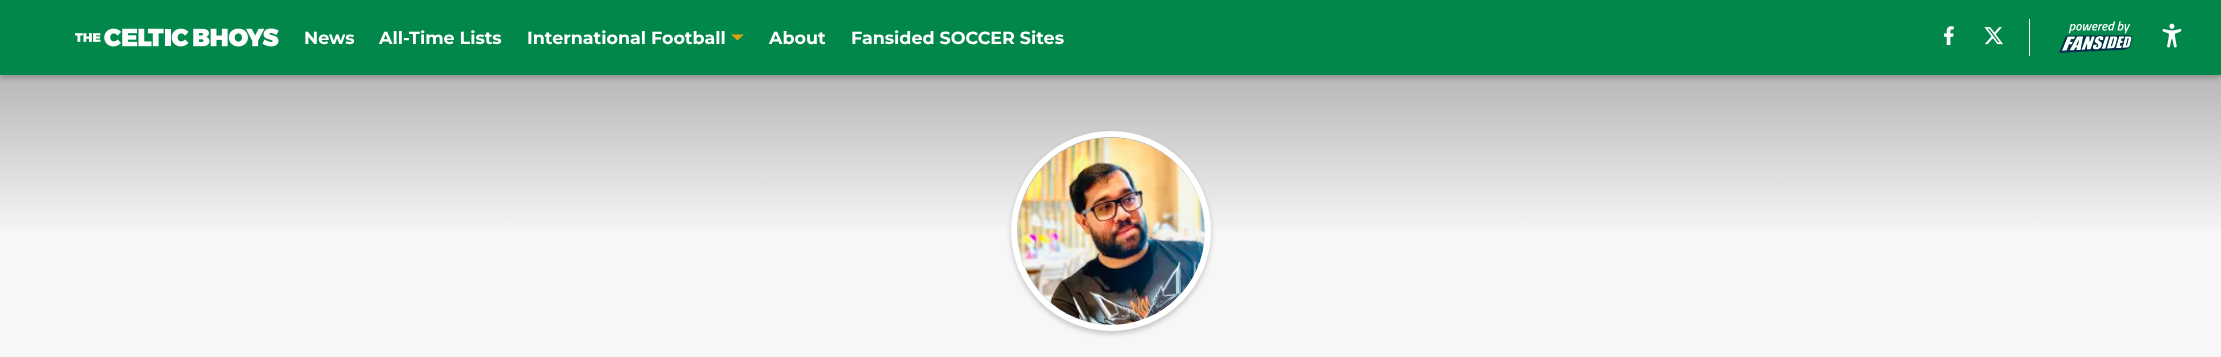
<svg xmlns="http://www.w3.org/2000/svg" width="2221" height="357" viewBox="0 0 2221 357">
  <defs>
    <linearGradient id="g1" gradientUnits="userSpaceOnUse" x1="1111" y1="238" x2="1111" y2="0"><stop offset="0" stop-color="#f8f8f8"/><stop offset="1" stop-color="#999"/></linearGradient>
  </defs>
  <rect width="100%" height="100%" fill="#f7f7f7"/>
  <path d="M0 75h2221v154H0z" fill="url(#g1)"/>
  <path d="M0 3h2221v75H0z" fill="#00000033" filter="blur(2.5px)"/>
  <path d="M0 0h2221v75H0z" fill="#018749"/>
  <image x="75" y="28" width="204" height="19" href="img/1.png"/>
  <path d="M731 34.5L737.5 40.5L744 34.5Z" fill="#dba111" fill-rule="evenodd"/>
  <image x="1944" y="26" width="10" height="19" href="img/2.png"/>
  <image x="1984" y="27" width="19" height="18" href="img/3.png"/>
  <path d="M2029 19h1v37H2029z" fill="#fff"/>
  <image x="2059" y="21" width="74" height="32" href="img/4.png"/>
  <image x="2162" y="23" width="20" height="25" href="img/5.png"/>
  <rect x="1011" y="134" width="200" height="200" rx="100" fill="#00000033" filter="blur(2.5px)"/>
  <circle cx="1111" cy="231" r="97" fill="none" stroke="#fff" stroke-width="6"/>
  <circle cx="1111.5" cy="231.5" r="93.5" fill="#f7f7f7"/>
  <image x="1017" y="137" width="188" height="188" href="img/6.png"/>
  <g font-family="Montserrat" font-size="17.5" font-weight="bold" fill="#fff">
    <text x="304" y="44">News</text>
    <text x="379" y="44">All-Time Lists</text>
    <text x="527" y="44">International Football</text>
    <text x="769" y="44">About</text>
    <text x="851" y="44">Fansided SOCCER Sites</text>
  </g>
</svg>
